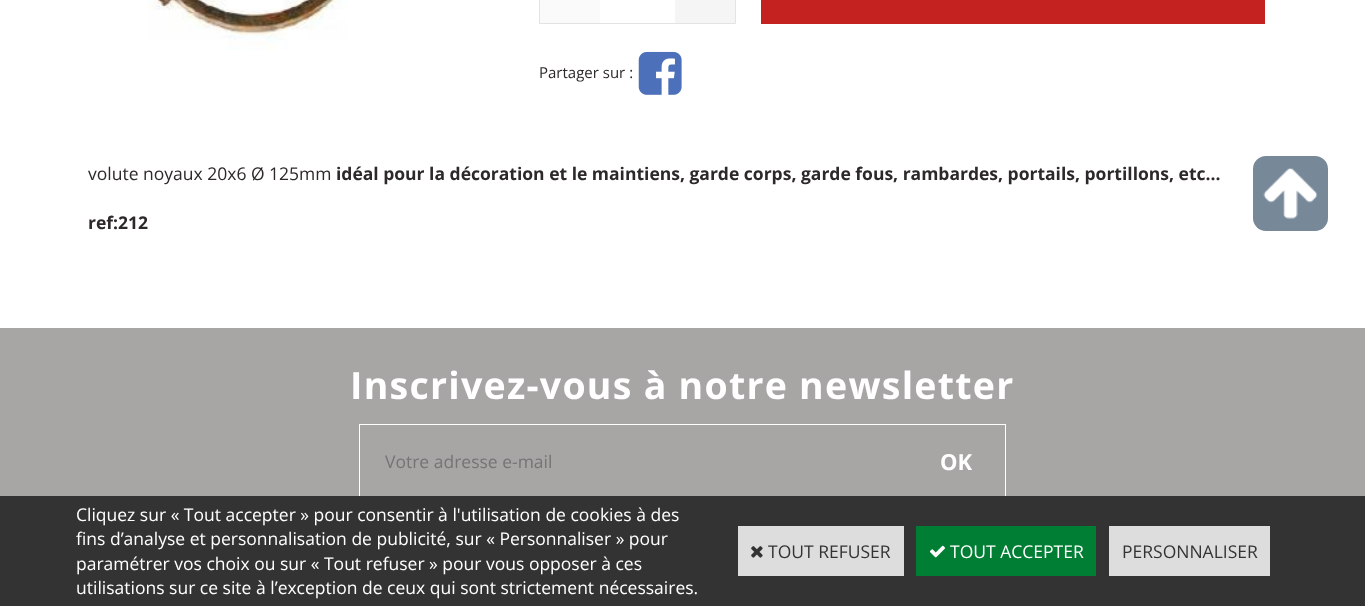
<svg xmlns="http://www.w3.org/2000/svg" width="1365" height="606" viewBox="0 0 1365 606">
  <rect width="100%" height="100%" fill="#fff"/>
  <image x="147" y="0" width="200" height="50" href="img/1.png"/>
  <path d="M539.5 -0.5h196v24H539.5z" fill="none" stroke="#e3e3e3"/>
  <path d="M540 0h60v23H540z" fill="#fafafa"/>
  <path d="M675 0h60v23H675z" fill="#f5f5f5"/>
  <path d="M761 0h504v24H761z" fill="#c42121"/>
  <image x="638" y="51" width="44" height="44" href="img/2.png"/>
  <rect x="1253" y="156" width="75" height="75" rx="13" fill="#789"/>
  <image x="1263" y="168" width="55" height="51" href="img/3.png"/>
  <path d="M0 328h1365v168H0z" fill="#a8a5a5"/>
  <path d="M359 424h647v1H359z" fill="#fff"/>
  <path d="M359 424h1v74H359z" fill="#fff"/>
  <path d="M1005 424h1v74H1005z" fill="#fff"/>
  <path d="M0 496h1365v110H0z" fill="#333"/>
  <path d="M738 526h166v50H738z" fill="#ddd"/>
  <image x="751" y="546" width="12" height="12" href="img/4.png"/>
  <path d="M916 526h180v50H916z" fill="#007e33"/>
  <image x="930" y="545" width="15" height="13" href="img/5.png"/>
  <path d="M1109 526h161v50H1109z" fill="#ddd"/>
  <text x="539" y="78" font-family="Open Sans" font-size="15" fill="#2d2929">Partager sur :</text>
  <text x="88" y="180" font-family="Open Sans" font-size="17.5" fill="#2d2929">volute noyaux 20x6 Ø 125mm</text>
  <g font-family="Open Sans" font-size="17.5" font-weight="bold" fill="#2d2929">
    <text x="336" y="180">idéal pour la décoration et le maintiens, garde corps, garde fous, rambardes, portails, portillons, etc...</text>
    <text x="88" y="229">ref:212</text>
  </g>
  <text x="350" y="399" font-family="Open Sans" font-size="37.5" font-weight="bold" letter-spacing="1.25" fill="#fff">Inscrivez-vous à notre newsletter</text>
  <text x="385" y="468" font-family="Open Sans" font-size="17.5" fill="#757575">Votre adresse e-mail</text>
  <text x="940" y="470" font-family="Open Sans" font-size="22" font-weight="bold" fill="#fff">OK</text>
  <g font-family="Open Sans" font-size="17.5" fill="#fff">
    <text x="76" y="521">Cliquez sur « Tout accepter » pour consentir à l'utilisation de cookies à des</text>
    <text x="76" y="545">fins d’analyse et personnalisation de publicité, sur « Personnaliser » pour</text>
    <text x="76" y="570">paramétrer vos choix ou sur « Tout refuser » pour vous opposer à ces</text>
    <text x="76" y="594">utilisations sur ce site à l’exception de ceux qui sont strictement nécessaires.</text>
  </g>
  <text x="768" y="558" font-family="Open Sans" font-size="17.5" fill="#333">TOUT REFUSER</text>
  <text x="950" y="558" font-family="Open Sans" font-size="17.5" fill="#fff">TOUT ACCEPTER</text>
  <text x="1122" y="558" font-family="Open Sans" font-size="17.5" fill="#333">PERSONNALISER</text>
</svg>
